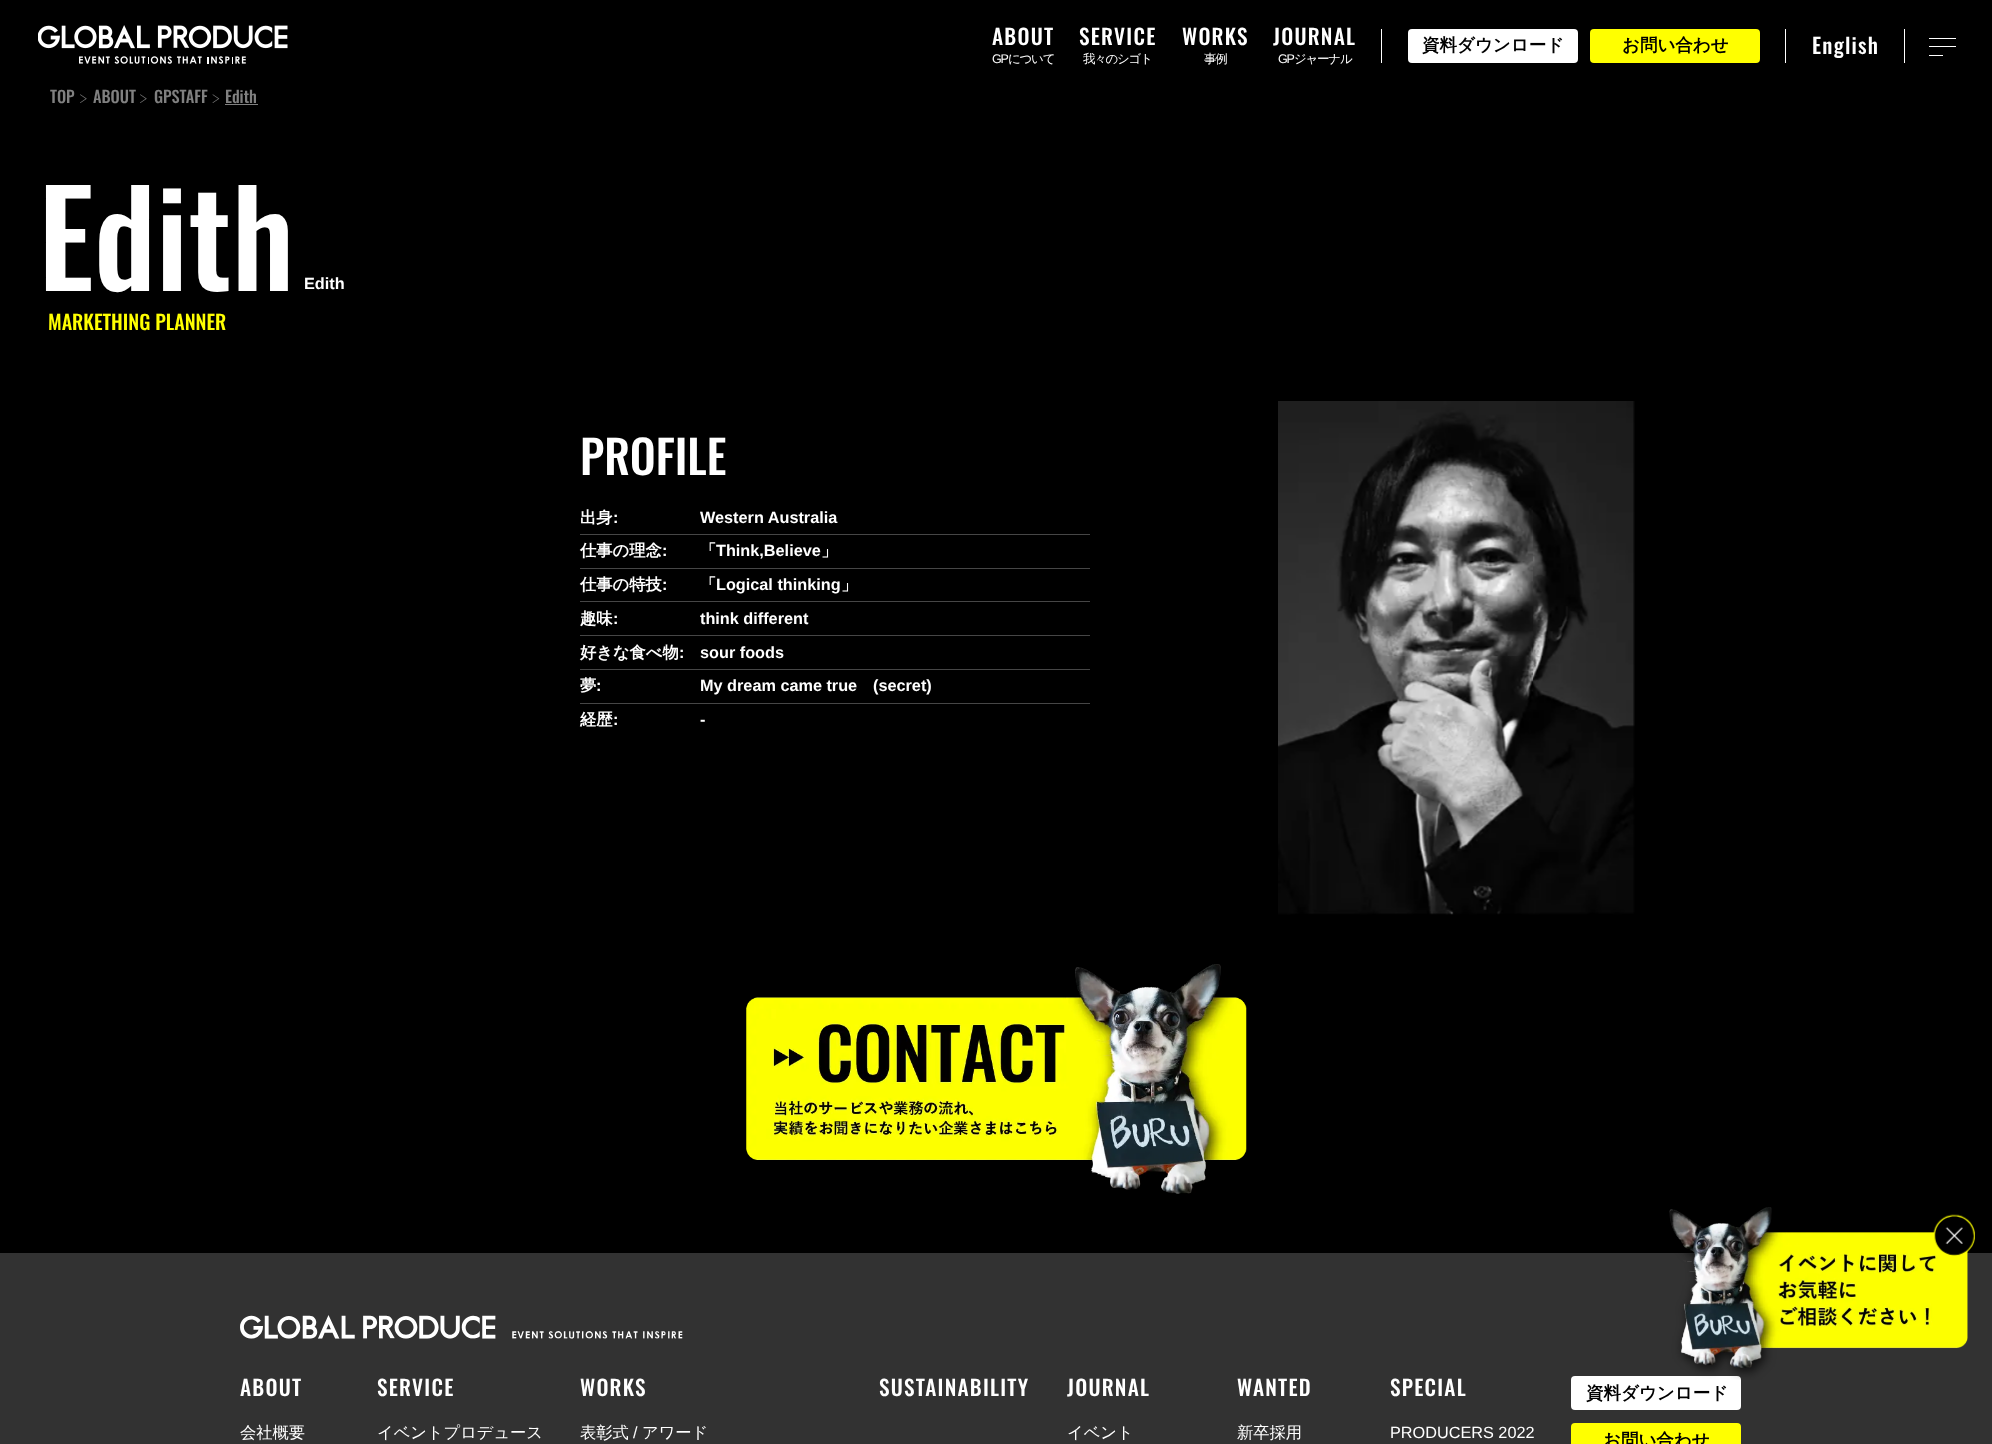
<svg xmlns="http://www.w3.org/2000/svg" width="1992" height="1444" viewBox="0 0 1992 1444">
  <rect width="100%" height="100%" fill="#000"/>
  <image x="38" y="25" width="250" height="39" href="img/1.png"/>
  <path d="M1381 29h1v34H1381z" fill="#fff"/>
  <rect x="1408" y="29" width="170" height="34" rx="4" fill="#fff"/>
  <path d="M1785 29h1v34H1785z" fill="#fff"/>
  <rect x="1590" y="29" width="170" height="34" rx="4" fill="#ff0"/>
  <path d="M1904 29h1v34H1904z" fill="#fff"/>
  <path d="M1929 46h27v1H1929z" fill="#fff"/>
  <path d="M1929 38h27v1H1929z" fill="#fff"/>
  <path d="M1929 55h14v1H1929z" fill="#fff"/>
  <image x="80" y="94" width="7" height="9" href="img/2.png"/>
  <image x="140" y="94" width="7" height="9" href="img/2.png"/>
  <image x="212" y="94" width="8" height="9" href="img/3.png"/>
  <path d="M225 104h33v1H225z" fill="#808080"/>
  <path d="M580 534h510v1H580z" fill="#464646"/>
  <path d="M580 568h510v1H580z" fill="#464646"/>
  <path d="M580 601h510v1H580z" fill="#464646"/>
  <path d="M580 635h510v1H580z" fill="#464646"/>
  <path d="M580 669h510v1H580z" fill="#464646"/>
  <path d="M580 703h510v1H580z" fill="#464646"/>
  <image x="1278" y="401" width="357" height="514" href="img/4.png"/>
  <image x="746" y="964" width="501" height="230" href="img/5.png"/>
  <path d="M0 1253h1992v191H0z" fill="#323232"/>
  <rect x="1571" y="1376" width="170" height="34" rx="4" fill="#fff"/>
  <image x="1669" y="1207" width="299" height="173" href="img/6.png"/>
  <image x="1933" y="1214" width="42" height="42" href="img/7.png"/>
  <image x="240" y="1315" width="443" height="24" href="img/8.png"/>
  <rect x="1571" y="1423" width="170" height="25" rx="4" fill="#ff0"/>
  <text x="992" y="45" font-family="Oswald" font-size="21.25" font-weight="500" letter-spacing="1.25" fill="#fff">ABOUT</text>
  <text x="992" y="63" font-family="Liberation Sans" font-size="12.5" letter-spacing="-1.25" fill="#fff">GP</text>
  <text x="1008" y="63" font-family="WenQuanYi Zen Hei" font-size="12.5" font-weight="500" letter-spacing="-1.25" fill="#fff">について</text>
  <text x="1079" y="45" font-family="Oswald" font-size="21.25" font-weight="500" letter-spacing="1.25" fill="#fff">SERVICE</text>
  <text x="1083" y="63" font-family="WenQuanYi Zen Hei" font-size="12.5" font-weight="500" letter-spacing="-1.25" fill="#fff">我々のシゴト</text>
  <text x="1182" y="45" font-family="Oswald" font-size="21.25" font-weight="500" letter-spacing="1.25" fill="#fff">WORKS</text>
  <text x="1204" y="63" font-family="WenQuanYi Zen Hei" font-size="12.5" font-weight="500" letter-spacing="-1.25" fill="#fff">事例</text>
  <text x="1273" y="45" font-family="Oswald" font-size="21.25" font-weight="500" letter-spacing="1.25" fill="#fff">JOURNAL</text>
  <text x="1278" y="63" font-family="Liberation Sans" font-size="12.5" letter-spacing="-1.25" fill="#fff">GP</text>
  <text x="1294" y="63" font-family="WenQuanYi Zen Hei" font-size="12.5" font-weight="500" letter-spacing="-1.25" fill="#fff">ジャーナル</text>
  <g font-family="WenQuanYi Zen Hei" font-size="17.5" font-weight="bold" fill="#000">
    <text x="1422" y="51">資料ダウンロード</text>
    <text x="1622" y="51">お問い合わせ</text>
  </g>
  <text x="1812" y="54" font-family="Oswald" font-size="21.25" font-weight="500" letter-spacing="1.25" fill="#fff">English</text>
  <g font-family="Oswald" font-size="16.25" font-weight="500" fill="#808080">
    <text x="50" y="103">TOP</text>
    <text x="93" y="103">ABOUT</text>
    <text x="154" y="103">GPSTAFF</text>
    <text x="225" y="103">Edith</text>
  </g>
  <text x="38" y="291" font-family="Oswald" font-size="131" font-weight="500" fill="#fff">Edith</text>
  <text x="304" y="289" font-family="Liberation Sans" font-size="16.25" font-weight="bold" fill="#fff">Edith</text>
  <text x="48" y="330" font-family="Oswald" font-size="20" font-weight="500" fill="#ff0">MARKETHING PLANNER</text>
  <text x="580" y="475" font-family="Oswald" font-size="46" font-weight="500" fill="#fff">PROFILE</text>
  <text x="580" y="523" font-family="WenQuanYi Zen Hei" font-size="16.25" font-weight="bold" fill="#fff">出身</text>
  <g font-family="Liberation Sans" font-size="16.25" font-weight="bold" fill="#fff">
    <text x="613" y="523">:</text>
    <text x="700" y="523">Western Australia</text>
  </g>
  <text x="580" y="556" font-family="WenQuanYi Zen Hei" font-size="16.25" font-weight="bold" fill="#fff">仕事の理念</text>
  <text x="662" y="556" font-family="Liberation Sans" font-size="16.25" font-weight="bold" fill="#fff">:</text>
  <text x="700" y="556" font-family="WenQuanYi Zen Hei" font-size="16.25" font-weight="bold" fill="#fff">「</text>
  <text x="716" y="556" font-family="Liberation Sans" font-size="16.25" font-weight="bold" fill="#fff">Think,Believe</text>
  <g font-family="WenQuanYi Zen Hei" font-size="16.25" font-weight="bold" fill="#fff">
    <text x="821" y="556">」</text>
    <text x="580" y="590">仕事の特技</text>
  </g>
  <text x="662" y="590" font-family="Liberation Sans" font-size="16.25" font-weight="bold" fill="#fff">:</text>
  <text x="700" y="590" font-family="WenQuanYi Zen Hei" font-size="16.25" font-weight="bold" fill="#fff">「</text>
  <text x="716" y="590" font-family="Liberation Sans" font-size="16.25" font-weight="bold" fill="#fff">Logical thinking</text>
  <g font-family="WenQuanYi Zen Hei" font-size="16.25" font-weight="bold" fill="#fff">
    <text x="841" y="590">」</text>
    <text x="580" y="624">趣味</text>
  </g>
  <g font-family="Liberation Sans" font-size="16.25" font-weight="bold" fill="#fff">
    <text x="613" y="624">:</text>
    <text x="700" y="624">think different</text>
  </g>
  <text x="580" y="658" font-family="WenQuanYi Zen Hei" font-size="16.25" font-weight="bold" fill="#fff">好きな食べ物</text>
  <g font-family="Liberation Sans" font-size="16.25" font-weight="bold" fill="#fff">
    <text x="679" y="658">:</text>
    <text x="700" y="658">sour foods</text>
  </g>
  <text x="580" y="691" font-family="WenQuanYi Zen Hei" font-size="16.25" font-weight="bold" fill="#fff">夢</text>
  <g font-family="Liberation Sans" font-size="16.25" font-weight="bold" fill="#fff">
    <text x="596" y="691">:</text>
    <text x="700" y="691">My dream came true</text>
    <text x="873" y="691">(secret)</text>
  </g>
  <text x="580" y="725" font-family="WenQuanYi Zen Hei" font-size="16.25" font-weight="bold" fill="#fff">経歴</text>
  <g font-family="Liberation Sans" font-size="16.25" font-weight="bold" fill="#fff">
    <text x="613" y="725">:</text>
    <text x="700" y="725">-</text>
  </g>
  <text x="240" y="1396" font-family="Oswald" font-size="21.25" font-weight="500" letter-spacing="1.25" fill="#fff">ABOUT</text>
  <text x="240" y="1438" font-family="WenQuanYi Zen Hei" font-size="16.25" font-weight="500" fill="#fff">会社概要</text>
  <text x="377" y="1396" font-family="Oswald" font-size="21.25" font-weight="500" letter-spacing="1.25" fill="#fff">SERVICE</text>
  <text x="377" y="1438" font-family="WenQuanYi Zen Hei" font-size="16.25" font-weight="500" fill="#fff">イベントプロデュース</text>
  <text x="580" y="1396" font-family="Oswald" font-size="21.25" font-weight="500" letter-spacing="1.25" fill="#fff">WORKS</text>
  <text x="580" y="1438" font-family="WenQuanYi Zen Hei" font-size="16.25" font-weight="500" fill="#fff">表彰式</text>
  <text x="633" y="1438" font-family="Liberation Sans" font-size="16.25" fill="#fff">/</text>
  <text x="642" y="1438" font-family="WenQuanYi Zen Hei" font-size="16.25" font-weight="500" fill="#fff">アワード</text>
  <g font-family="Oswald" font-size="21.25" font-weight="500" letter-spacing="1.25" fill="#fff">
    <text x="879" y="1396">SUSTAINABILITY</text>
    <text x="1067" y="1396">JOURNAL</text>
  </g>
  <text x="1067" y="1438" font-family="WenQuanYi Zen Hei" font-size="16.25" font-weight="500" fill="#fff">イベント</text>
  <text x="1237" y="1396" font-family="Oswald" font-size="21.25" font-weight="500" letter-spacing="1.25" fill="#fff">WANTED</text>
  <text x="1237" y="1438" font-family="WenQuanYi Zen Hei" font-size="16.25" font-weight="500" fill="#fff">新卒採用</text>
  <text x="1390" y="1396" font-family="Oswald" font-size="21.25" font-weight="500" letter-spacing="1.25" fill="#fff">SPECIAL</text>
  <text x="1390" y="1438" font-family="Liberation Sans" font-size="16.25" fill="#fff">PRODUCERS 2022</text>
  <g font-family="WenQuanYi Zen Hei" font-size="17.5" font-weight="bold" fill="#000">
    <text x="1586" y="1399">資料ダウンロード</text>
    <text x="1603" y="1446">お問い合わせ</text>
  </g>
</svg>
